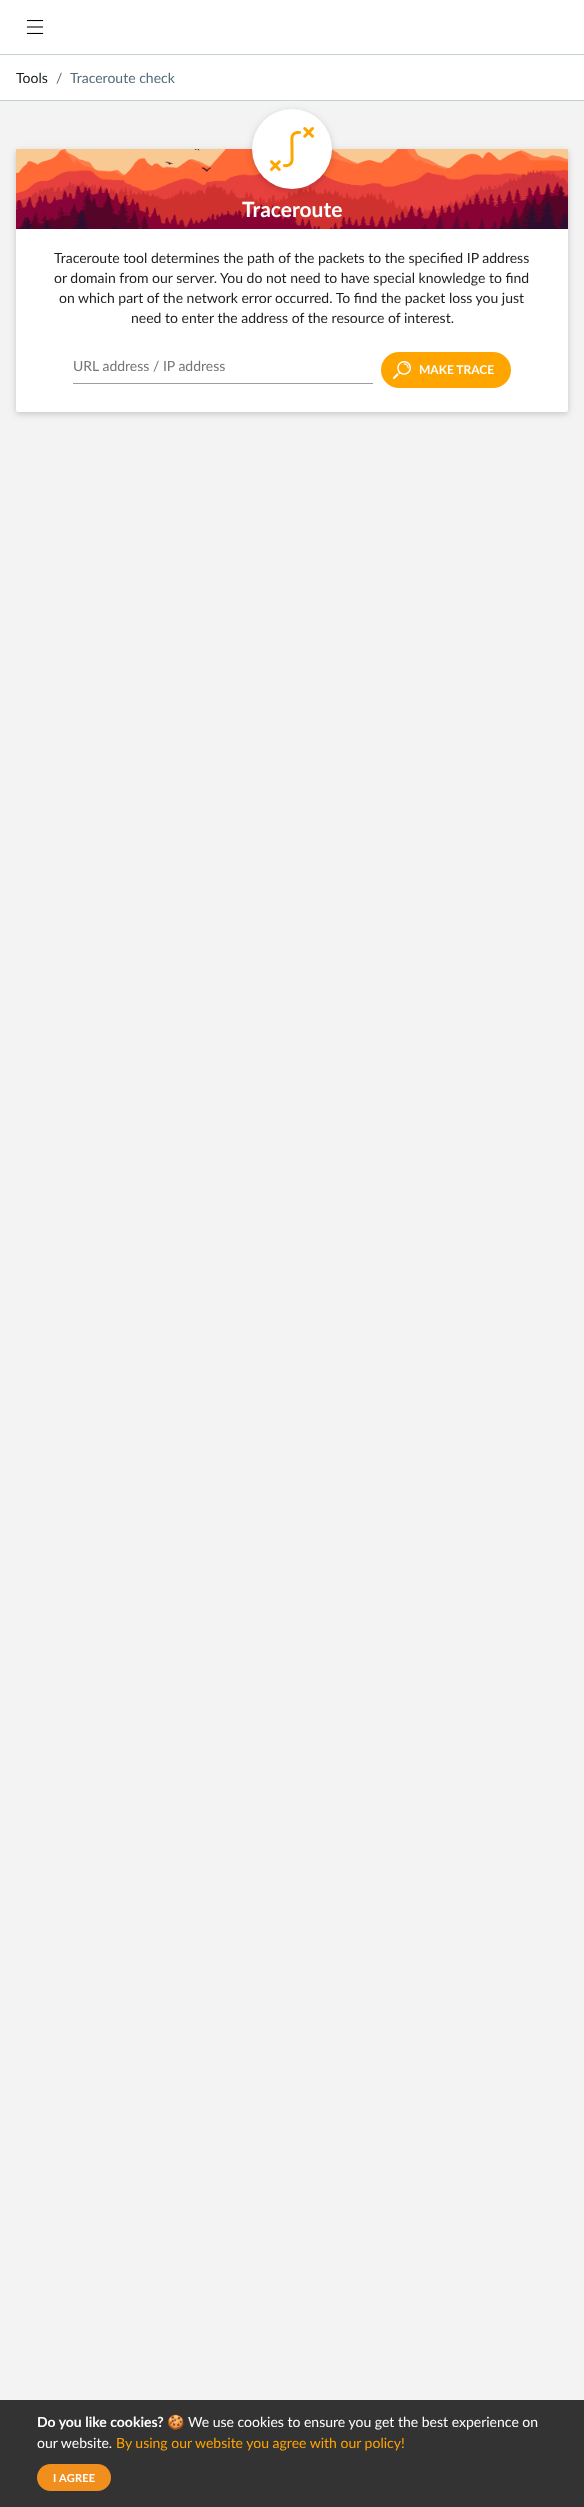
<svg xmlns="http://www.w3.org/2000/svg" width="584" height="2507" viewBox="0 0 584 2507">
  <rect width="100%" height="100%" fill="#f3f3f3"/>
  <path d="M0 0h584v54H0z" fill="#fff"/>
  <path d="M0 54h584v1H0z" fill="#c2cfd6"/>
  <image x="26" y="20" width="18" height="14" href="img/1.png"/>
  <path d="M0 55h584v45H0z" fill="#fff"/>
  <path d="M0 100h584v1H0z" fill="#c2cfd6"/>
  <rect x="16" y="151" width="552" height="263" rx="2" fill="#00000014" filter="blur(5px)"/>
  <rect x="16" y="151" width="552" height="263" rx="2" fill="#0000001a" filter="blur(2.5px)"/>
  <rect x="16" y="149" width="552" height="263" rx="2" fill="#fff"/>
  <image x="16" y="149" width="552" height="80" href="img/2.png"/>
  <rect x="252" y="111" width="80" height="80" rx="40" fill="#00000014" filter="blur(5px)"/>
  <rect x="252" y="111" width="80" height="80" rx="40" fill="#0000001a" filter="blur(2.5px)"/>
  <circle cx="292" cy="149" r="40" fill="#fff"/>
  <image x="270" y="127" width="44" height="44" href="img/3.png"/>
  <path d="M73 383h300v1H73z" fill="#9e9e9e"/>
  <rect x="381" y="352" width="130" height="36" rx="18" fill="#ffa500"/>
  <image x="393" y="361" width="18" height="18" href="img/4.png"/>
  <path d="M0 2400h584v107H0z" fill="#333"/>
  <rect x="37" y="2464" width="74" height="27" rx="13.5" fill="#f08e1e"/>
  <text x="16" y="83" font-family="Lato" font-size="14" fill="#151b1e">Tools</text>
  <g font-family="Lato" font-size="14" fill="#536c79">
    <text x="56" y="83">/</text>
    <text x="70" y="83">Traceroute check</text>
  </g>
  <text x="242" y="217" font-family="Lato" font-size="21" font-weight="bold" fill="#fff">Traceroute</text>
  <g font-family="Lato" font-size="14" fill="#1e1e1e">
    <text x="54" y="263">Traceroute tool determines the path of the packets to the specified IP address</text>
    <text x="54" y="283">or domain from our server. You do not need to have special knowledge to find</text>
    <text x="59" y="303">on which part of the network error occurred. To find the packet loss you just</text>
    <text x="131" y="323">need to enter the address of the resource of interest.</text>
  </g>
  <text x="73" y="371" font-family="Lato" font-size="14" fill="#757575">URL address / IP address</text>
  <text x="419" y="374" font-family="Lato" font-size="12" font-weight="bold" fill="#fff">MAKE TRACE</text>
  <text x="37" y="2427" font-family="Lato" font-size="14" font-weight="bold" fill="#fff">Do you like cookies?</text>
  <text x="167" y="2427" font-family="Noto Color Emoji" font-size="14" fill="#fff">🍪</text>
  <g font-family="Lato" font-size="14" fill="#fff">
    <text x="188" y="2427">We use cookies to ensure you get the best experience on</text>
    <text x="37" y="2448">our website.</text>
  </g>
  <text x="116" y="2448" font-family="Lato" font-size="14" fill="#ffa500">By using our website you agree with our policy!</text>
  <text x="53" y="2482" font-family="Lato" font-size="11" font-weight="bold" letter-spacing="0.25" fill="#fff">I AGREE</text>
</svg>
